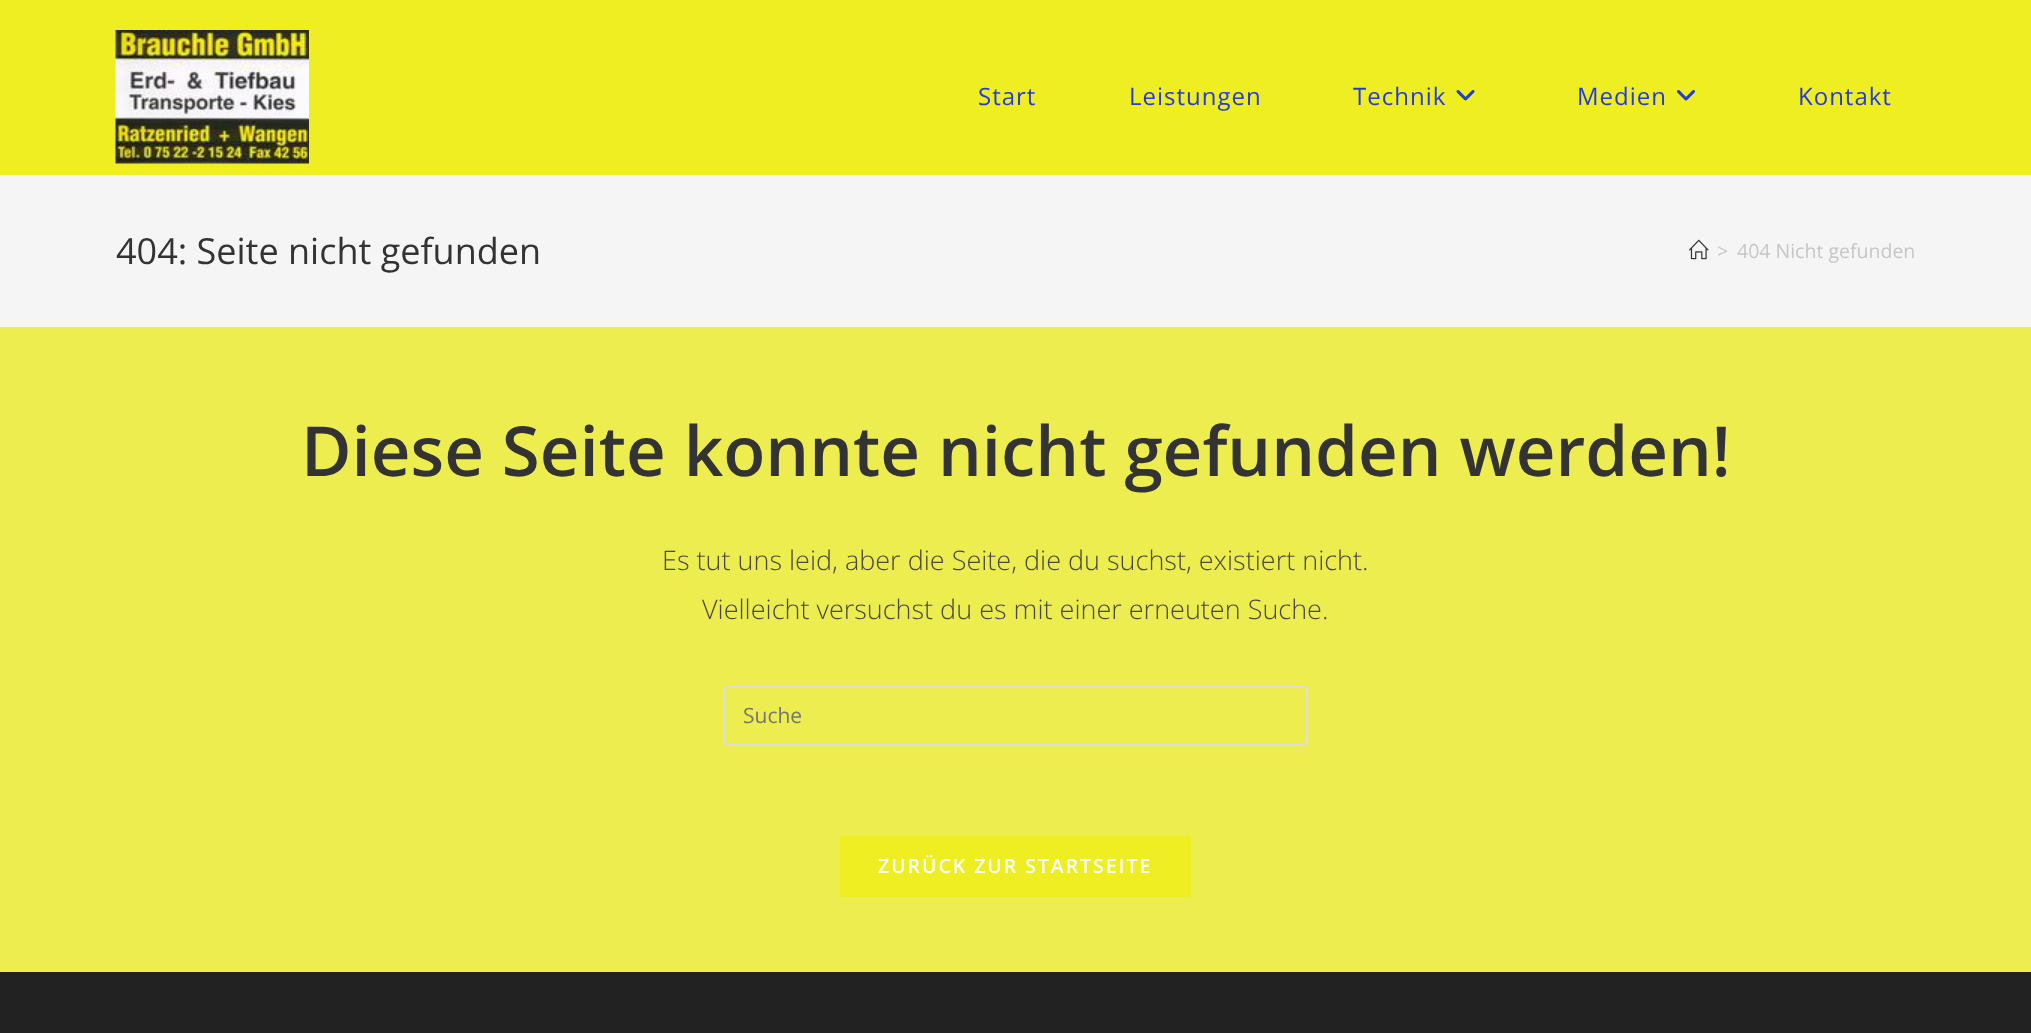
<svg xmlns="http://www.w3.org/2000/svg" width="2031" height="1033" viewBox="0 0 2031 1033">
  <rect width="100%" height="100%" fill="#eded50"/>
  <path d="M0 0h2031v175H0z" fill="#ee2"/>
  <image x="115" y="30" width="194" height="134" href="img/1.png"/>
  <image x="1456" y="90" width="19" height="11" href="img/2.png"/>
  <image x="1677" y="90" width="18" height="11" href="img/3.png"/>
  <path d="M0 175h2031v152H0z" fill="#f5f5f5"/>
  <image x="1689" y="239" width="20" height="21" href="img/4.png"/>
  <rect x="724" y="687" width="583" height="58" rx="4" fill="none" stroke="#ddd" stroke-width="2"/>
  <path d="M840 836h351v61H840z" fill="#ee2"/>
  <path d="M0 972h2031v61H0z" fill="#222"/>
  <g font-family="Open Sans" font-size="24" letter-spacing="1" fill="#233cdd">
    <text x="978" y="105">Start</text>
    <text x="1129" y="105">Leistungen</text>
    <text x="1353" y="105">Technik</text>
    <text x="1577" y="105">Medien</text>
    <text x="1798" y="105">Kontakt</text>
  </g>
  <text x="116" y="264" font-family="Open Sans" font-size="36" fill="#333">404: Seite nicht gefunden</text>
  <g font-family="Open Sans" font-size="19.5" fill="#c6c6c6">
    <text x="1717" y="258">&gt;</text>
    <text x="1737" y="258">404 Nicht gefunden</text>
  </g>
  <text x="301" y="476" font-family="Open Sans" font-size="69" font-weight="600" fill="#333">Diese Seite konnte nicht gefunden werden!</text>
  <g font-family="Open Sans" font-size="27" font-weight="300" fill="#4a4a4a">
    <text x="662" y="570">Es tut uns leid, aber die Seite, die du suchst, existiert nicht.</text>
    <text x="702" y="619">Vielleicht versuchst du es mit einer erneuten Suche.</text>
  </g>
  <text x="743" y="723" font-family="Open Sans" font-size="21" fill="#757575">Suche</text>
  <text x="878" y="873" font-family="Open Sans" font-size="19.5" font-weight="600" letter-spacing="1.95" fill="#fff">ZURÜCK ZUR STARTSEITE</text>
</svg>
